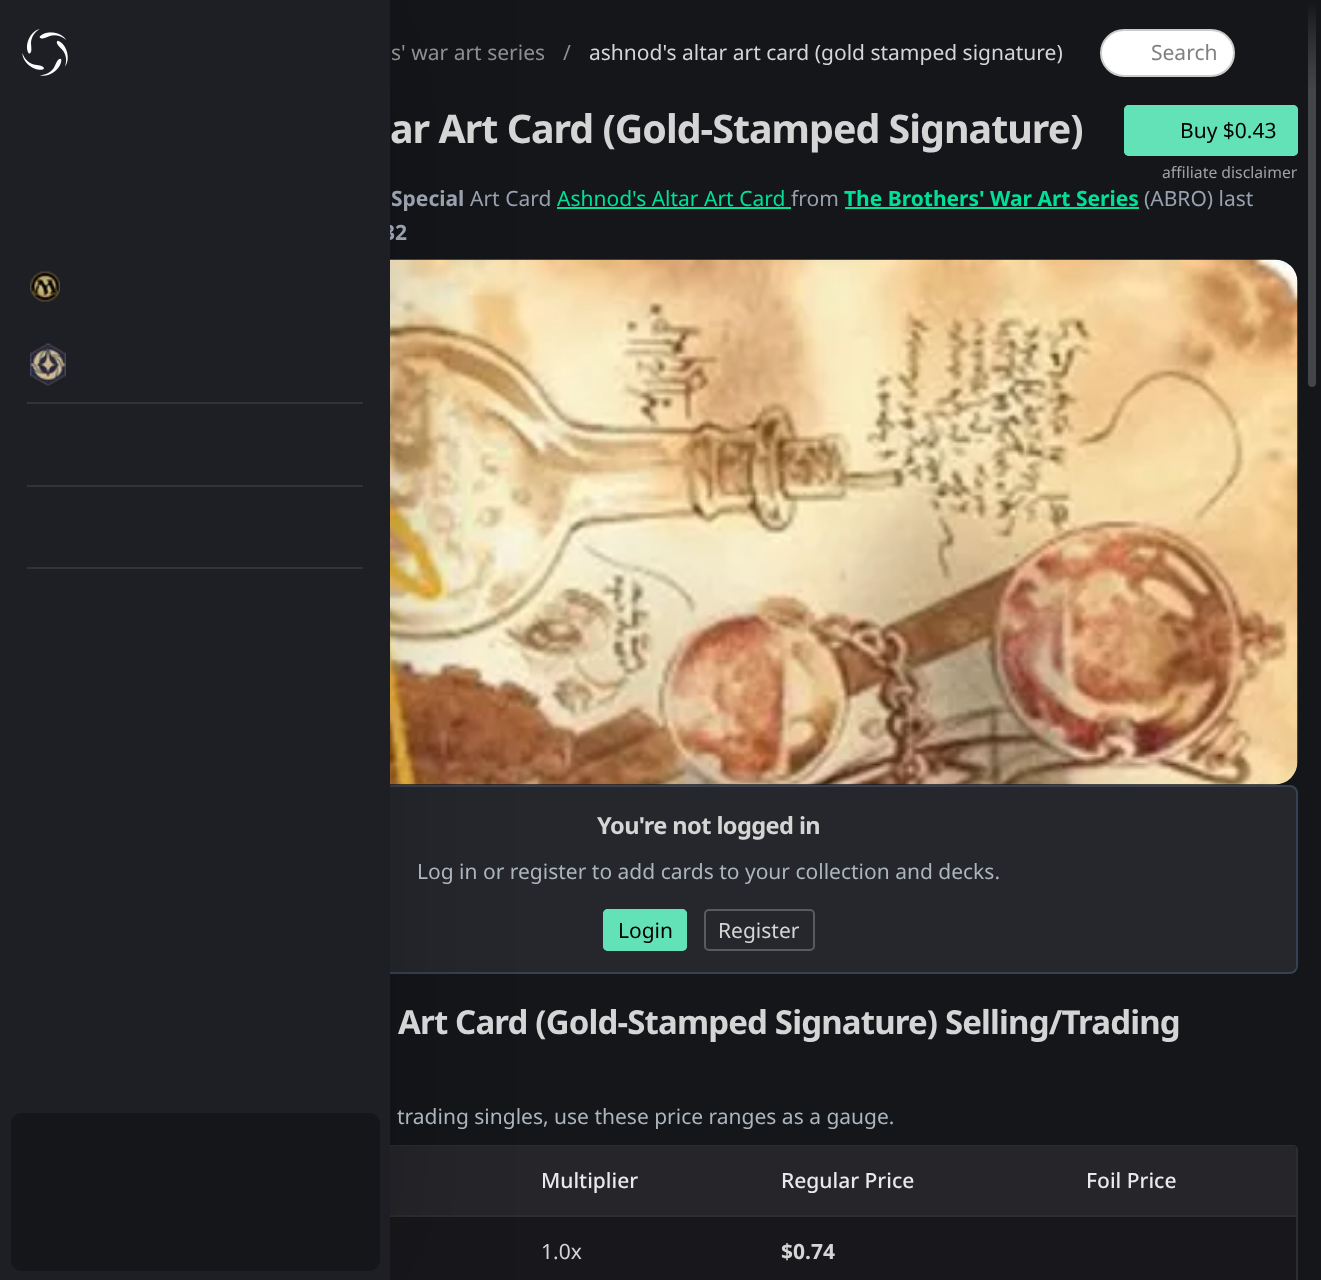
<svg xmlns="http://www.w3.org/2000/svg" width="1321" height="1280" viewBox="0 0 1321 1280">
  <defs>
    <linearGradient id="g1" gradientUnits="userSpaceOnUse" x1="709" y1="0" x2="709" y2="105"><stop offset="0" stop-color="#14161a"/><stop offset="0.19" stop-color="#14161a" stop-opacity="0.74"/><stop offset="0.34" stop-color="#14161a" stop-opacity="0.54"/><stop offset="0.47" stop-color="#14161a" stop-opacity="0.38"/><stop offset="0.56" stop-color="#14161a" stop-opacity="0.28"/><stop offset="0.65" stop-color="#14161a" stop-opacity="0.19"/><stop offset="0.73" stop-color="#14161a" stop-opacity="0.12"/><stop offset="0.8" stop-color="#14161a" stop-opacity="0.07"/><stop offset="0.86" stop-color="#14161a" stop-opacity="0.04"/><stop offset="0.91" stop-color="#14161a" stop-opacity="0.02"/><stop offset="0.95" stop-color="#14161a" stop-opacity="0.01"/><stop offset="0.98" stop-color="#14161a" stop-opacity="0"/><stop offset="1" stop-color="#14161a" stop-opacity="0"/></linearGradient>
  </defs>
  <rect width="100%" height="100%" fill="#14161a"/>
  <path d="M557 207h234v2H557z" fill="#00e099"/>
  <rect x="120" y="260" width="1178" height="525" rx="23" fill="#18181c"/>
  <image x="390" y="259" width="908" height="526" href="img/4.png"/>
  <rect x="121" y="786" width="1176" height="187" rx="7" fill="#26272c" stroke="#364153" stroke-width="2"/>
  <rect x="121" y="1146" width="1176" height="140" rx="4" fill="none" stroke="#2d2d30" stroke-width="2"/>
  <path d="M125 1146H1293C1294.5 1146 1296 1147.5 1296 1149V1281H122V1149C122 1147.5 123.5 1146 125 1146Z" fill="#18181c"/>
  <path d="M125 1146H1293C1294.5 1146 1296 1147.5 1296 1149V1217H122V1149C122 1147.5 123.5 1146 125 1146Z" fill="#26262a"/>
  <path d="M390 1215h906v2H390z" fill="#2d2d30"/>
  <path d="M0 0h390v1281H0z" fill="#00000033" filter="blur(60px)"/>
  <rect x="1101" y="30" width="133" height="46" rx="23" fill="#fff" stroke="#ccc" stroke-width="2"/>
  <rect x="1308" y="3" width="8" height="384" rx="4" fill="#434548"/>
  <path d="M1308 3h8v85H1308z" fill="url(#g1)"/>
  <rect x="1124" y="105" width="174" height="51" rx="5" fill="#63e2b7"/>
  <rect x="1125" y="106" width="172" height="49" rx="4" fill="none" stroke="#63e2b7" stroke-width="2"/>
  <path d="M845 207h294v2H845z" fill="#00e099"/>
  <rect x="603" y="909" width="84" height="42" rx="5" fill="#63e2b7"/>
  <rect x="604" y="910" width="82" height="40" rx="4" fill="none" stroke="#63e2b7" stroke-width="2"/>
  <rect x="705" y="910" width="109" height="40" rx="4" fill="none" stroke="#5a5b5f" stroke-width="2"/>
  <g font-family="Noto Sans" font-size="21" fill="#8e8f91">
    <text x="391" y="60">s' war art series</text>
    <text x="563" y="60">/</text>
  </g>
  <text x="589" y="60" font-family="Noto Sans" font-size="21" fill="#d5d5d6">ashnod's altar art card (gold stamped signature)</text>
  <text x="1151" y="60" font-family="Noto Sans" font-size="21" fill="#808080">Search</text>
  <text x="390" y="143" font-family="Noto Sans" font-size="39.4" font-weight="bold" letter-spacing="-1" fill="#d5d5d6">ar Art Card (Gold-Stamped Signature)</text>
  <text x="1180" y="138" font-family="Noto Sans" font-size="21" fill="#000">Buy $0.43</text>
  <text x="1162" y="178" font-family="Noto Sans" font-size="15.75" fill="#a1a2a3">affiliate disclaimer</text>
  <text x="391" y="206" font-family="Noto Sans" font-size="21" font-weight="bold" fill="#99a1af">Special</text>
  <text x="470" y="206" font-family="Noto Sans" font-size="21" fill="#99a1af">Art Card</text>
  <text x="557" y="206" font-family="Noto Sans" font-size="21" fill="#00e099">Ashnod's Altar Art Card</text>
  <text x="791" y="206" font-family="Noto Sans" font-size="21" fill="#99a1af">from</text>
  <text x="844" y="206" font-family="Noto Sans" font-size="21" font-weight="bold" fill="#00e099">The Brothers' War Art Series</text>
  <text x="1144" y="206" font-family="Noto Sans" font-size="21" fill="#99a1af">(ABRO) last</text>
  <text x="383" y="240" font-family="Noto Sans" font-size="21" font-weight="bold" fill="#99a1af">32</text>
  <path d="M0 0h390v1280H0z" fill="#1d1f25"/>
  <image x="30" y="343" width="36" height="43" href="img/3.png"/>
  <image x="30" y="271" width="30" height="31" href="img/2.png"/>
  <path d="M27 567h336v2H27z" fill="#313339"/>
  <path d="M27 485h336v2H27z" fill="#313339"/>
  <path d="M27 402h336v2H27z" fill="#313339"/>
  <image x="22" y="29" width="46" height="47" href="img/1.png"/>
  <rect x="11" y="1113" width="369" height="158" rx="11" fill="#14161a"/>
  <text x="597" y="834" font-family="Noto Sans" font-size="23.6" font-weight="bold" letter-spacing="-0.6" fill="#d5d5d6">You're not logged in</text>
  <text x="417" y="879" font-family="Noto Sans" font-size="21" fill="#acb5be">Log in or register to add cards to your collection and decks.</text>
  <text x="618" y="938" font-family="Noto Sans" font-size="21" fill="#000">Login</text>
  <text x="718" y="938" font-family="Noto Sans" font-size="21" fill="#d5d5d6">Register</text>
  <text x="398" y="1034" font-family="Noto Sans" font-size="33" font-weight="bold" letter-spacing="-0.85" fill="#d5d5d6">Art Card (Gold-Stamped Signature) Selling/Trading</text>
  <text x="397" y="1124" font-family="Noto Sans" font-size="21" fill="#acb5be">trading singles, use these price ranges as a gauge.</text>
  <g font-family="Noto Sans" font-size="21" font-weight="500" fill="#e9e9ea">
    <text x="541" y="1188">Multiplier</text>
    <text x="781" y="1188">Regular Price</text>
    <text x="1086" y="1188">Foil Price</text>
  </g>
  <text x="541" y="1259" font-family="Noto Sans" font-size="21" fill="#d5d5d6">1.0x</text>
  <text x="781" y="1259" font-family="Noto Sans" font-size="21" font-weight="bold" fill="#d5d5d6">$0.74</text>
</svg>
